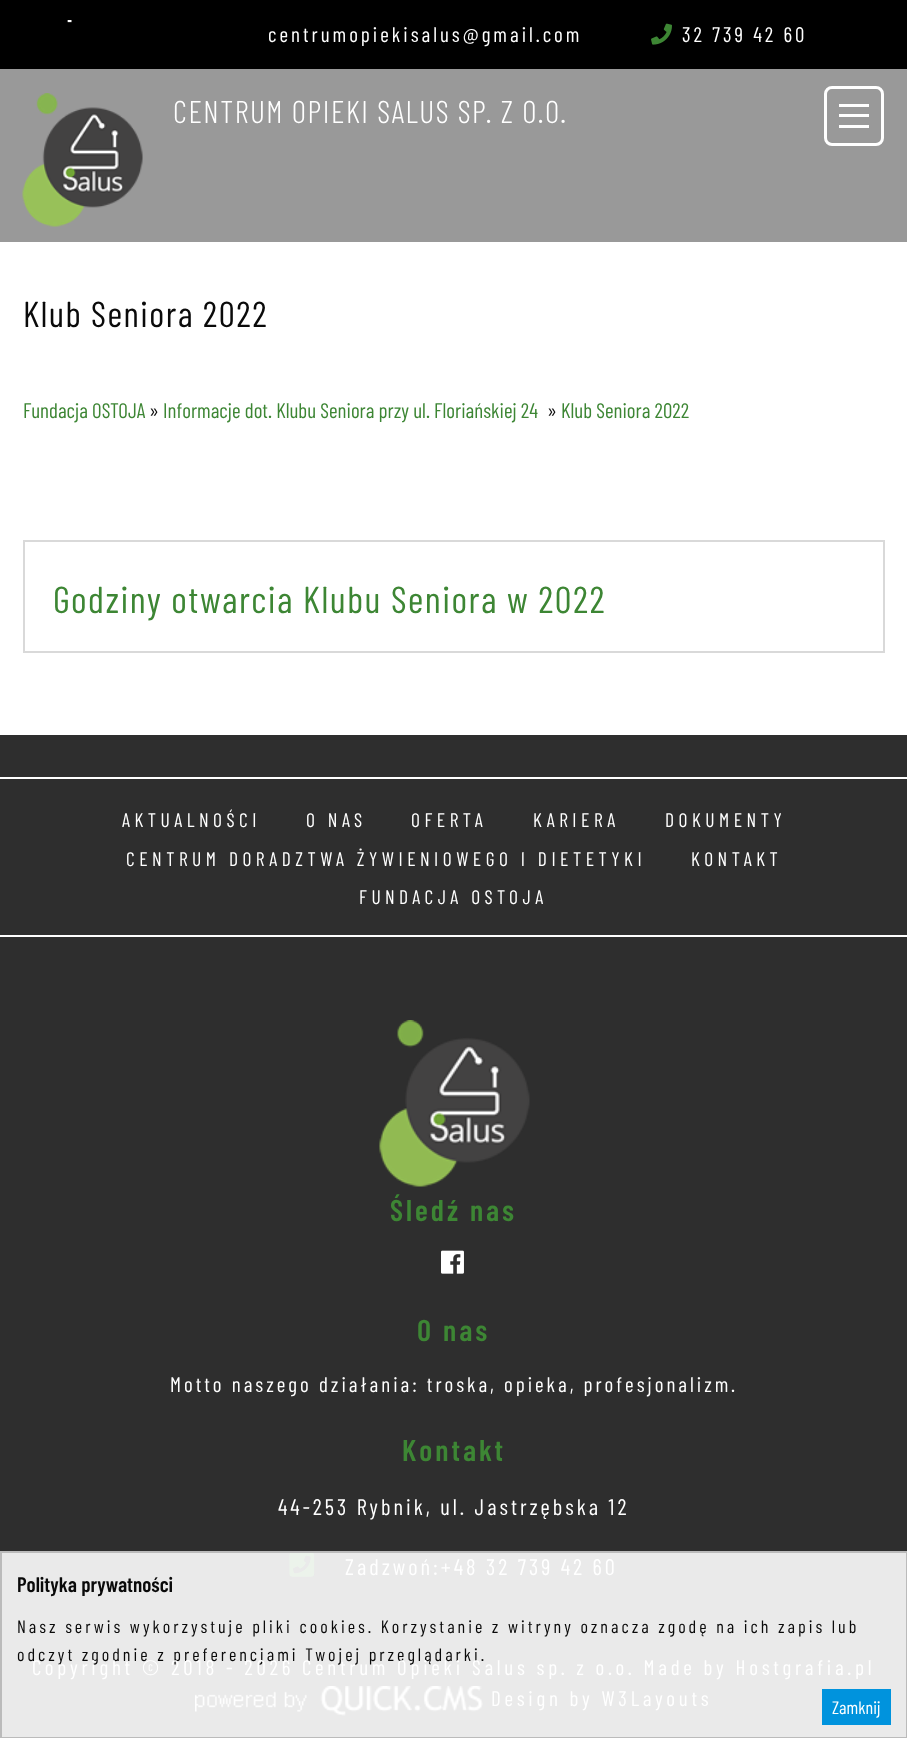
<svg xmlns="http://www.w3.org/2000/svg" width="907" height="1738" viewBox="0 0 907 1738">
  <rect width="100%" height="100%" fill="#fff"/>
  <path d="M0 0h907v69H0z" fill="#000"/>
  <image x="67" y="20" width="5" height="3" href="img/1.png"/>
  <image x="651" y="23" width="21" height="22" href="img/2.png"/>
  <path d="M0 69h907v173H0z" fill="#999"/>
  <image x="22" y="93" width="121" height="134" href="img/3.png"/>
  <rect x="825.5" y="87.5" width="57" height="57" rx="6.5" fill="none" stroke="#fff" stroke-width="3"/>
  <path d="M839 125h30v3H839z" fill="#fefefe"/>
  <path d="M839 114h30v3H839z" fill="#fefefe"/>
  <path d="M839 104h30v3H839z" fill="#fefefe"/>
  <path d="M24 541h860v111H24z" fill="none" stroke="#d9d9d9" stroke-width="2"/>
  <path d="M2 1553h904v184H2z" fill="#eaeaea"/>
  <image x="289" y="1553" width="26" height="24" href="img/6.png"/>
  <image x="195" y="1686" width="288" height="30" href="img/7.png"/>
  <path d="M1 1552h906v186H1z" fill="none" stroke="#bbb" stroke-width="2"/>
  <path d="M822 1689h69v36H822z" fill="#0093dd"/>
  <path d="M0 735h907v816H0z" fill="#2e2e2e"/>
  <path d="M0 777h907v2H0z" fill="#fff"/>
  <path d="M0 935h907v2H0z" fill="#fff"/>
  <image x="379" y="1020" width="151" height="167" href="img/4.png"/>
  <image x="441" y="1250" width="23" height="24" href="img/5.png"/>
  <g font-family="Barlow Condensed" font-size="21" letter-spacing="3" fill="#fff">
    <text x="268" y="42">centrumopiekisalus@gmail.com</text>
    <text x="682" y="42">32 739 42 60</text>
  </g>
  <text x="173" y="123" font-family="Barlow Condensed" font-size="31.5" font-weight="300" letter-spacing="1.5" fill="#fff">CENTRUM OPIEKI SALUS SP. Z O.O.</text>
  <text x="23" y="327" font-family="Barlow Condensed" font-size="36" letter-spacing="1.5" fill="#0a0a0a">Klub Seniora 2022</text>
  <text x="23" y="418" font-family="Barlow Condensed" font-size="21" fill="#3d8634">Fundacja OSTOJA</text>
  <text x="149" y="418" font-family="Barlow Condensed" font-size="21" fill="#0a0a0a">»</text>
  <text x="163" y="418" font-family="Barlow Condensed" font-size="21" fill="#3d8634">Informacje dot. Klubu Seniora przy ul. Floriańskiej 24</text>
  <text x="547" y="418" font-family="Barlow Condensed" font-size="21" fill="#0a0a0a">»</text>
  <text x="561" y="418" font-family="Barlow Condensed" font-size="21" fill="#3d8634">Klub Seniora 2022</text>
  <text x="53" y="613" font-family="Barlow Condensed" font-size="37.5" letter-spacing="1.5" fill="#3d8634">Godziny otwarcia Klubu Seniora w 2022</text>
  <text x="17" y="1592" font-family="Barlow Condensed" font-size="21" font-weight="600" fill="#0a0a0a">Polityka prywatności</text>
  <g font-family="Barlow Condensed" font-size="18" letter-spacing="3" fill="#0a0a0a">
    <text x="17" y="1633">Nasz serwis wykorzystuje pliki cookies. Korzystanie z witryny oznacza zgodę na ich zapis lub</text>
    <text x="17" y="1661">odczyt zgodnie z preferencjami Twojej przeglądarki.</text>
  </g>
  <text x="832" y="1714" font-family="Barlow Condensed" font-size="18" fill="#fff">Zamknij</text>
  <g font-family="Barlow Condensed" font-size="19.5" letter-spacing="4.5" fill="#fff">
    <text x="122" y="827">AKTUALNOŚCI</text>
    <text x="306" y="827">O NAS</text>
    <text x="411" y="827">OFERTA</text>
    <text x="533" y="827">KARIERA</text>
    <text x="665" y="827">DOKUMENTY</text>
    <text x="126" y="866">CENTRUM DORADZTWA ŻYWIENIOWEGO I DIETETYKI</text>
    <text x="691" y="866">KONTAKT</text>
    <text x="359" y="904">FUNDACJA OSTOJA</text>
  </g>
  <g font-family="Barlow Condensed" font-size="30" font-weight="600" letter-spacing="3" fill="#3d8634">
    <text x="390" y="1221">Śledź nas</text>
    <text x="417" y="1341">O nas</text>
  </g>
  <text x="170" y="1392" font-family="Barlow Condensed" font-size="21" letter-spacing="3" fill="#fff">Motto naszego działania: troska, opieka, profesjonalizm.</text>
  <text x="402" y="1461" font-family="Barlow Condensed" font-size="30" font-weight="600" letter-spacing="3" fill="#3d8634">Kontakt</text>
  <g font-family="Barlow Condensed" font-size="22.5" letter-spacing="3" fill="#fff">
    <text x="278" y="1515">44-253 Rybnik, ul. Jastrzębska 12</text>
    <text x="345" y="1575">Zadzwoń:+48 32 739 42 60</text>
  </g>
  <g font-family="Barlow Condensed" font-size="21" letter-spacing="3.75" fill="#fff">
    <text x="32" y="1675">Copyright © 2018 - 2026 Centrum Opieki Salus sp. z o.o. Made by Hostgrafia.pl</text>
    <text x="491" y="1706">Design by W3Layouts</text>
  </g>
</svg>
